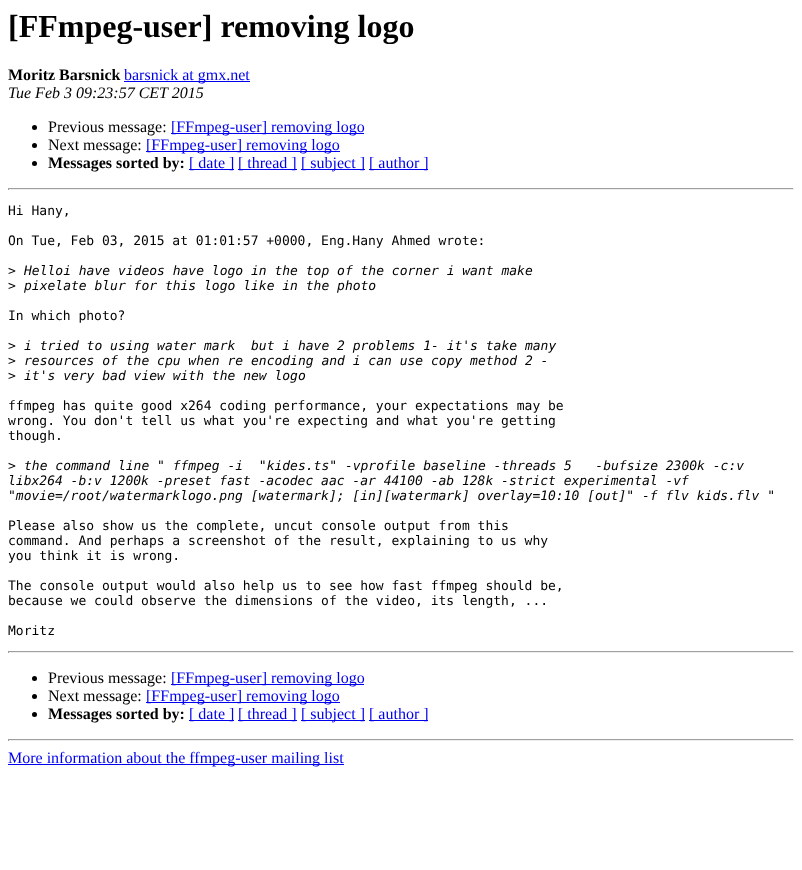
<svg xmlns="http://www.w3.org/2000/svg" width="802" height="870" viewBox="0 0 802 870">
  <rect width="100%" height="100%" fill="#fff"/>
  <path d="M124 81h126v1H124z" fill="#00e"/>
  <circle cx="34.5" cy="127.5" r="2.5" fill="#000"/>
  <path d="M171 133h193v1H171z" fill="#00e"/>
  <circle cx="34.5" cy="145.5" r="2.5" fill="#000"/>
  <path d="M146 151h194v1H146z" fill="#00e"/>
  <circle cx="34.5" cy="163.5" r="2.5" fill="#000"/>
  <path d="M189 169h45v1H189z" fill="#00e"/>
  <path d="M238 169h59v1H238z" fill="#00e"/>
  <path d="M301 169h64v1H301z" fill="#00e"/>
  <path d="M369 169h59v1H369z" fill="#00e"/>
  <path d="M8 188h786v1H8z" fill="#9f9f9f"/>
  <path d="M793 188h1v2H793z" fill="#eee"/>
  <path d="M8 189h786v1H8z" fill="#eee"/>
  <path d="M8 188h1v2H8z" fill="#9f9f9f"/>
  <path d="M8 651h786v1H8z" fill="#9f9f9f"/>
  <path d="M793 651h1v2H793z" fill="#eee"/>
  <path d="M8 652h786v1H8z" fill="#eee"/>
  <path d="M8 651h1v2H8z" fill="#9f9f9f"/>
  <circle cx="34.5" cy="678.5" r="2.5" fill="#000"/>
  <path d="M171 684h193v1H171z" fill="#00e"/>
  <circle cx="34.5" cy="696.5" r="2.5" fill="#000"/>
  <path d="M146 702h194v1H146z" fill="#00e"/>
  <circle cx="34.5" cy="714.5" r="2.5" fill="#000"/>
  <path d="M189 720h45v1H189z" fill="#00e"/>
  <path d="M238 720h59v1H238z" fill="#00e"/>
  <path d="M301 720h64v1H301z" fill="#00e"/>
  <path d="M369 720h59v1H369z" fill="#00e"/>
  <path d="M8 739h786v1H8z" fill="#9f9f9f"/>
  <path d="M793 739h1v2H793z" fill="#eee"/>
  <path d="M8 740h786v1H8z" fill="#eee"/>
  <path d="M8 739h1v2H8z" fill="#9f9f9f"/>
  <path d="M8 764h336v1H8z" fill="#00e"/>
  <text x="8" y="37" font-family="Liberation Serif" font-size="32" font-weight="bold" fill="#000">[FFmpeg-user] removing logo</text>
  <text x="8" y="80" font-family="Liberation Serif" font-size="16" font-weight="bold" fill="#000">Moritz Barsnick</text>
  <text x="124" y="80" font-family="Liberation Serif" font-size="16" fill="#00e">barsnick at gmx.net</text>
  <text x="8" y="98" font-family="Liberation Serif" font-size="16" font-style="italic" fill="#000">Tue Feb 3 09:23:57 CET 2015</text>
  <text x="48" y="132" font-family="Liberation Serif" font-size="16" fill="#000">Previous message:</text>
  <text x="171" y="132" font-family="Liberation Serif" font-size="16" fill="#00e">[FFmpeg-user] removing logo</text>
  <text x="48" y="150" font-family="Liberation Serif" font-size="16" fill="#000">Next message:</text>
  <text x="146" y="150" font-family="Liberation Serif" font-size="16" fill="#00e">[FFmpeg-user] removing logo</text>
  <text x="48" y="168" font-family="Liberation Serif" font-size="16" font-weight="bold" fill="#000">Messages sorted by:</text>
  <g font-family="Liberation Serif" font-size="16" fill="#00e">
    <text x="189" y="168">[ date ]</text>
    <text x="238" y="168">[ thread ]</text>
    <text x="301" y="168">[ subject ]</text>
    <text x="369" y="168">[ author ]</text>
  </g>
  <g font-family="DejaVu Sans Mono" font-size="13" fill="#000">
    <text x="8" y="215">Hi Hany,</text>
    <text x="8" y="245">On Tue, Feb 03, 2015 at 01:01:57 +0000, Eng.Hany Ahmed wrote:</text>
    <text x="8" y="275">&gt;</text>
  </g>
  <text x="24" y="275" font-family="DejaVu Sans Mono" font-size="13" font-style="italic" fill="#000">Helloi have videos have logo in the top of the corner i want make</text>
  <text x="8" y="290" font-family="DejaVu Sans Mono" font-size="13" fill="#000">&gt;</text>
  <text x="24" y="290" font-family="DejaVu Sans Mono" font-size="13" font-style="italic" fill="#000">pixelate blur for this logo like in the photo</text>
  <g font-family="DejaVu Sans Mono" font-size="13" fill="#000">
    <text x="8" y="320">In which photo?</text>
    <text x="8" y="350">&gt;</text>
  </g>
  <text x="24" y="350" font-family="DejaVu Sans Mono" font-size="13" font-style="italic" fill="#000" xml:space="preserve">i tried to using water mark  but i have 2 problems 1- it's take many</text>
  <text x="8" y="365" font-family="DejaVu Sans Mono" font-size="13" fill="#000">&gt;</text>
  <text x="24" y="365" font-family="DejaVu Sans Mono" font-size="13" font-style="italic" fill="#000">resources of the cpu when re encoding and i can use copy method 2 -</text>
  <text x="8" y="380" font-family="DejaVu Sans Mono" font-size="13" fill="#000">&gt;</text>
  <text x="24" y="380" font-family="DejaVu Sans Mono" font-size="13" font-style="italic" fill="#000">it's very bad view with the new logo</text>
  <g font-family="DejaVu Sans Mono" font-size="13" fill="#000">
    <text x="8" y="410">ffmpeg has quite good x264 coding performance, your expectations may be</text>
    <text x="8" y="425">wrong. You don't tell us what you're expecting and what you're getting</text>
    <text x="8" y="440">though.</text>
    <text x="8" y="470">&gt;</text>
  </g>
  <g font-family="DejaVu Sans Mono" font-size="13" font-style="italic" fill="#000">
    <text x="24" y="470" xml:space="preserve">the command line " ffmpeg -i  "kides.ts" -vprofile baseline -threads 5   -bufsize 2300k -c:v</text>
    <text x="8" y="485">libx264 -b:v 1200k -preset fast -acodec aac -ar 44100 -ab 128k -strict experimental -vf</text>
    <text x="8" y="500">"movie=/root/watermarklogo.png [watermark]; [in][watermark] overlay=10:10 [out]" -f flv kids.flv "</text>
  </g>
  <g font-family="DejaVu Sans Mono" font-size="13" fill="#000">
    <text x="8" y="530">Please also show us the complete, uncut console output from this</text>
    <text x="8" y="545">command. And perhaps a screenshot of the result, explaining to us why</text>
    <text x="8" y="560">you think it is wrong.</text>
    <text x="8" y="590">The console output would also help us to see how fast ffmpeg should be,</text>
    <text x="8" y="605">because we could observe the dimensions of the video, its length, ...</text>
    <text x="8" y="635">Moritz</text>
  </g>
  <text x="48" y="683" font-family="Liberation Serif" font-size="16" fill="#000">Previous message:</text>
  <text x="171" y="683" font-family="Liberation Serif" font-size="16" fill="#00e">[FFmpeg-user] removing logo</text>
  <text x="48" y="701" font-family="Liberation Serif" font-size="16" fill="#000">Next message:</text>
  <text x="146" y="701" font-family="Liberation Serif" font-size="16" fill="#00e">[FFmpeg-user] removing logo</text>
  <text x="48" y="719" font-family="Liberation Serif" font-size="16" font-weight="bold" fill="#000">Messages sorted by:</text>
  <g font-family="Liberation Serif" font-size="16" fill="#00e">
    <text x="189" y="719">[ date ]</text>
    <text x="238" y="719">[ thread ]</text>
    <text x="301" y="719">[ subject ]</text>
    <text x="369" y="719">[ author ]</text>
    <text x="8" y="763">More information about the ffmpeg-user mailing list</text>
  </g>
</svg>
